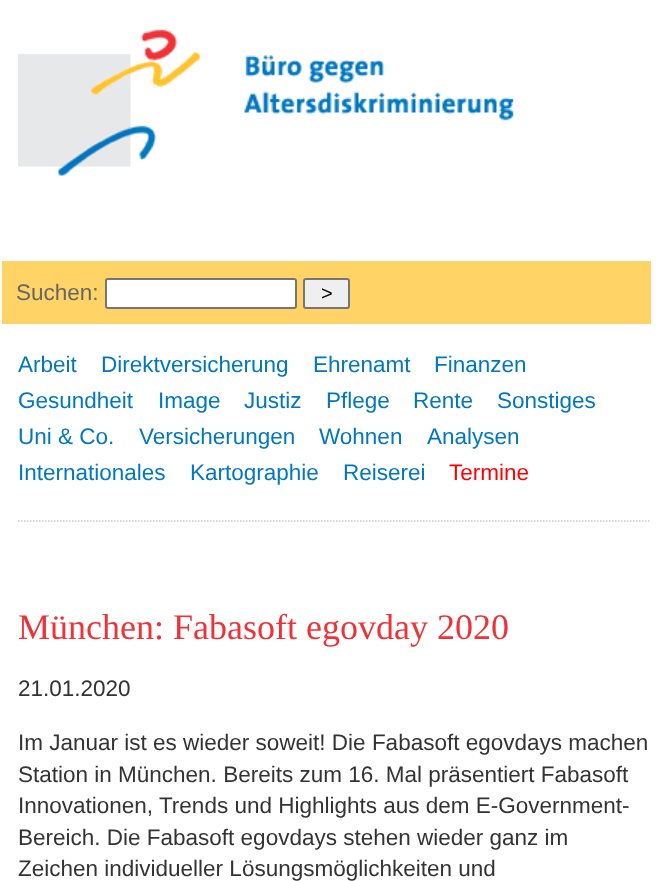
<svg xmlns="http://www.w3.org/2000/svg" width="669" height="881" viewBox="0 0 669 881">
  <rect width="100%" height="100%" fill="#fff"/>
  <image x="18" y="29" width="496" height="147" href="img/1.png"/>
  <path d="M2 261h649v63H2z" fill="#ffd366"/>
  <rect x="106" y="279" width="190" height="29" rx="2" fill="#fff" stroke="#767676" stroke-width="2"/>
  <rect x="304" y="279" width="45" height="29" rx="2" fill="#efefef" stroke="#767676" stroke-width="2"/>
  <path d="M18 521H651" fill="none" stroke="#ccc" stroke-width="1.5" stroke-dasharray="1.5 1.5"/>
  <text x="16" y="300" font-family="Liberation Sans" font-size="22.5" fill="#666">Suchen:</text>
  <text x="321" y="300" font-family="Liberation Sans" font-size="20" fill="#000">&gt;</text>
  <g font-family="Liberation Sans" font-size="22.5" fill="#0077be">
    <text x="18" y="372">Arbeit</text>
    <text x="101" y="372">Direktversicherung</text>
    <text x="313" y="372">Ehrenamt</text>
    <text x="434" y="372">Finanzen</text>
    <text x="18" y="408">Gesundheit</text>
    <text x="158" y="408">Image</text>
    <text x="244" y="408">Justiz</text>
    <text x="326" y="408">Pflege</text>
    <text x="413" y="408">Rente</text>
    <text x="497" y="408">Sonstiges</text>
    <text x="18" y="444">Uni &amp; Co.</text>
    <text x="139" y="444">Versicherungen</text>
    <text x="319" y="444">Wohnen</text>
    <text x="427" y="444">Analysen</text>
    <text x="18" y="480">Internationales</text>
    <text x="190" y="480">Kartographie</text>
    <text x="343" y="480">Reiserei</text>
  </g>
  <text x="449" y="480" font-family="Liberation Sans" font-size="22.5" fill="#f00">Termine</text>
  <text x="18" y="639" font-family="Liberation Serif" font-size="36" fill="#ee3338">München: Fabasoft egovday 2020</text>
  <g font-family="Liberation Sans" font-size="22.5" fill="#333">
    <text x="18" y="696">21.01.2020</text>
    <text x="18" y="750">Im Januar ist es wieder soweit! Die Fabasoft egovdays machen</text>
    <text x="18" y="782">Station in München. Bereits zum 16. Mal präsentiert Fabasoft</text>
    <text x="18" y="813">Innovationen, Trends und Highlights aus dem E-Government-</text>
    <text x="18" y="845">Bereich. Die Fabasoft egovdays stehen wieder ganz im</text>
    <text x="18" y="876">Zeichen individueller Lösungsmöglichkeiten und</text>
  </g>
</svg>
